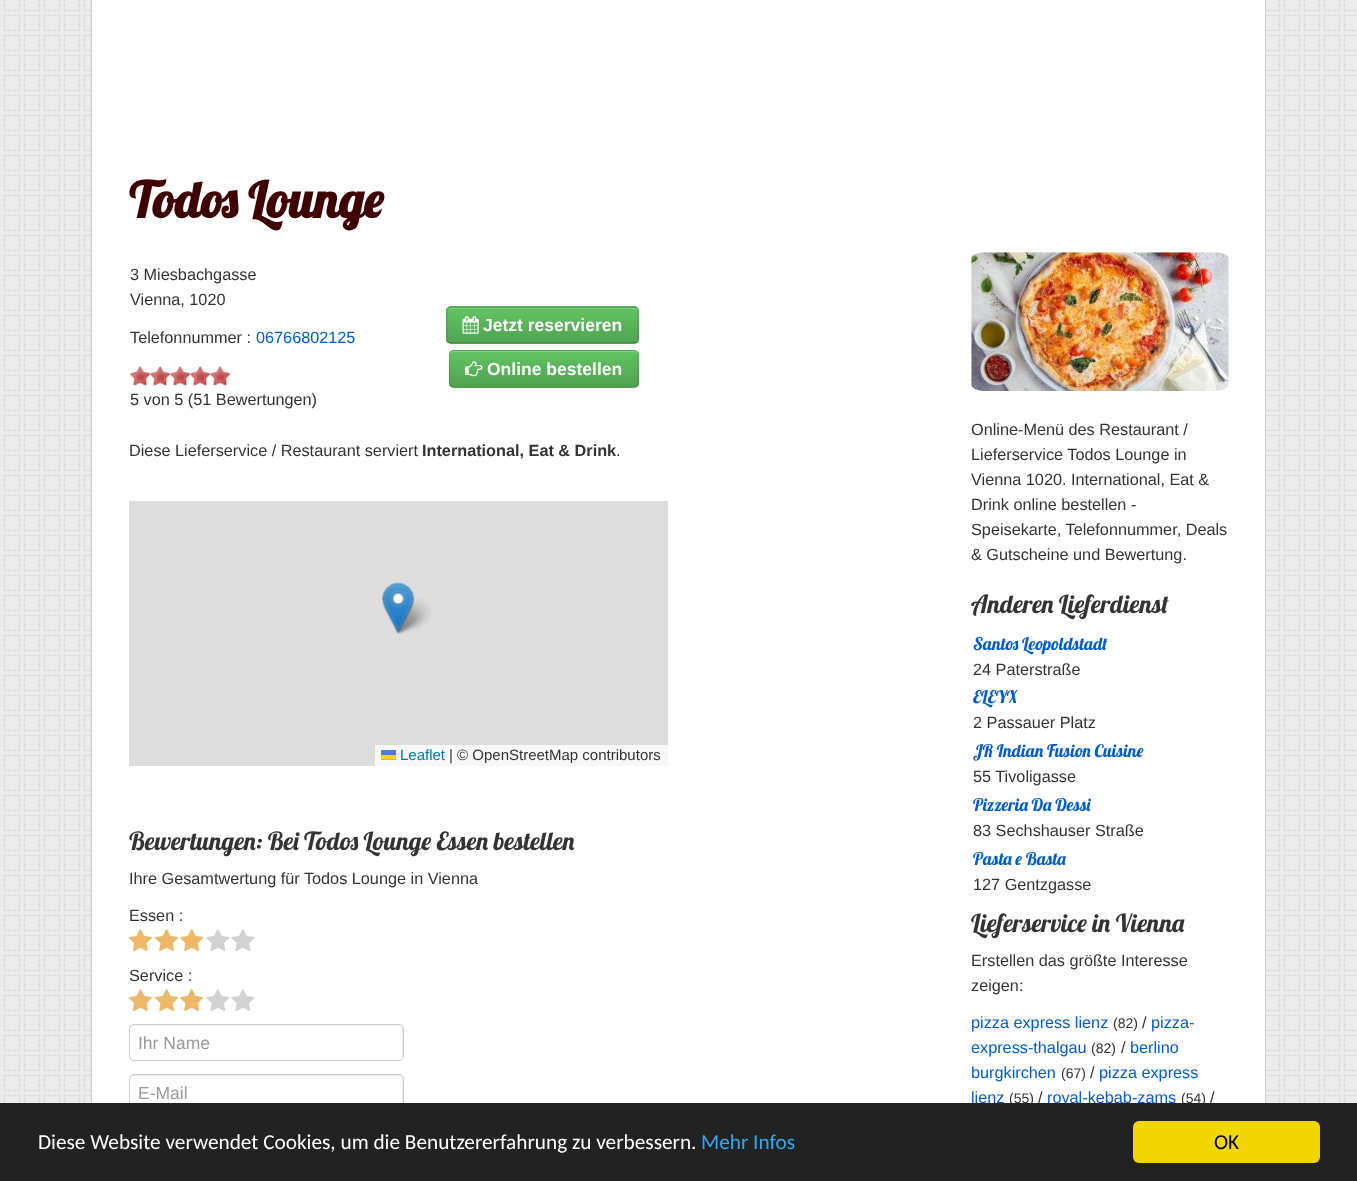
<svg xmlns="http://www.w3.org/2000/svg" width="1357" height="1181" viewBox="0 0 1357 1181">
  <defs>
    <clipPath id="clip1"><rect x="446" y="306" width="193" height="38" rx="5"/></clipPath>
    <linearGradient id="g1" gradientUnits="userSpaceOnUse" x1="543" y1="308" x2="543" y2="343"><stop offset="0" stop-color="#62c462"/><stop offset="1" stop-color="#51a351"/></linearGradient>
    <clipPath id="clip2"><rect x="449" y="350" width="190" height="38" rx="5"/></clipPath>
    <linearGradient id="g2" gradientUnits="userSpaceOnUse" x1="544" y1="351" x2="544" y2="386"><stop offset="0" stop-color="#62c462"/><stop offset="1" stop-color="#51a351"/></linearGradient>
  </defs>
  <rect width="100%" height="100%" fill="#fff"/>
  <image x="0" y="0" width="1357" height="1103" href="img/1.png"/>
  <path d="M92 0h1173v1103H92z" fill="#fff"/>
  <path d="M91.5 -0.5h1174v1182H91.5z" fill="none" stroke="#ccc"/>
  <image x="130" y="366" width="20" height="20" href="img/2.png"/>
  <image x="150" y="366" width="20" height="20" href="img/2.png"/>
  <image x="170" y="366" width="20" height="20" href="img/2.png"/>
  <image x="190" y="366" width="20" height="20" href="img/2.png"/>
  <image x="210" y="366" width="20" height="20" href="img/2.png"/>
  <rect x="446" y="308" width="193" height="37" rx="5" fill="#0000000d" filter="blur(1px)"/>
  <rect x="446" y="306" width="193" height="38" rx="5" fill="#5bb75b"/>
  <g clip-path="url(#clip1)">
    <path d="M446 308h193v35H446z" fill="url(#g1)"/>
  </g>
  <path d="M451 309H634C636 309 638 310 638 312C638 310 636 308 634 308H452C451 308 449 309 449 310Z" fill="#81d081"/>
  <path d="M637 342C636 342.5 635 343 634 343H451C450 343 449 342.5 448 342" fill="none" stroke="#00000040" stroke-width="1.2"/>
  <path d="M448 342C447.5 341 447 340 447 339V311C447 310 447.5 309 448 308C449 307.5 450 307 451 307H634C635 307 636 307.5 637 308C637.5 309 638 310 638 311V339C638 340 637.5 341 637 342" fill="none" stroke="#0000001a" stroke-width="1.2"/>
  <image x="462" y="316" width="17" height="18" href="img/3.png"/>
  <rect x="449" y="351" width="190" height="38" rx="5" fill="#0000000d" filter="blur(1px)"/>
  <rect x="449" y="350" width="190" height="38" rx="5" fill="#5bb75b"/>
  <g clip-path="url(#clip2)">
    <path d="M449 351h190v35H449z" fill="url(#g2)"/>
  </g>
  <path d="M454 352H634C636 352 638 354 638 356C638 353 637 351 634 351H453C451 352 450 354 450 356C450 354 452 352 454 352Z" fill="#81d081"/>
  <path d="M637 385.5C636 386.5 635 387 634 387H454C452.5 387 451.5 386.5 450.5 385.5" fill="none" stroke="#00000040" stroke-width="1.2"/>
  <path d="M450.5 385.5C450 385 449.5 383.5 449.5 382.5V355C449.5 354 450 352.5 450.5 352C451.5 351 452.5 350.5 454 350.5H634C635 350.5 636 351 637 352C637.5 352.5 638 354 638 355V382.5C638 383.5 637.5 385 637 385.5" fill="none" stroke="#0000001a" stroke-width="1.2"/>
  <image x="465" y="361" width="18" height="16" href="img/4.png"/>
  <path d="M129 501h539v265H129z" fill="#ddd"/>
  <image x="394" y="598" width="37" height="36" href="img/6.png"/>
  <image x="382" y="582" width="33" height="52" href="img/5.png"/>
  <path d="M375 745h293v21H375z" fill="#f8f8f8"/>
  <path d="M381 750h15v5H381z" fill="#4c7be1"/>
  <path d="M381 755h15v4H381z" fill="#ffd500"/>
  <path d="M381 759h15v1H381z" fill="#e0bc00"/>
  <image x="128" y="929" width="24" height="23" href="img/7.png"/>
  <image x="155" y="929" width="24" height="23" href="img/8.png"/>
  <image x="180" y="929" width="24" height="23" href="img/8.png"/>
  <image x="206" y="929" width="24" height="22" href="img/9.png"/>
  <image x="231" y="929" width="24" height="22" href="img/9.png"/>
  <image x="128" y="989" width="24" height="23" href="img/7.png"/>
  <image x="155" y="989" width="24" height="23" href="img/8.png"/>
  <image x="180" y="989" width="24" height="23" href="img/8.png"/>
  <image x="206" y="989" width="24" height="22" href="img/9.png"/>
  <image x="231" y="989" width="24" height="22" href="img/9.png"/>
  <path d="M134 1026H399C404 1026 402 1037 402 1039V1059C403 1058 403 1057 403 1056V1029C403 1027 401 1025 399 1025H134C132 1025 130 1027 130 1029V1030C130 1028 132 1026 134 1026Z" fill="#ececec"/>
  <rect x="129.5" y="1024.5" width="274" height="36" rx="4.5" fill="none" stroke="#ccc"/>
  <path d="M134 1076H399C404 1076 402 1087 402 1089V1109C403 1108 403 1107 403 1106V1079C403 1077 401 1075 399 1075H134C132 1075 130 1077 130 1079V1080C130 1078 132 1076 134 1076Z" fill="#ececec"/>
  <rect x="129.5" y="1074.5" width="274" height="36" rx="4.5" fill="none" stroke="#ccc"/>
  <image x="971" y="252" width="258" height="139" href="img/10.png"/>
  <text x="129" y="218" font-family="Lobster" font-size="50" font-weight="bold" fill="#3f0000">Todos Lounge</text>
  <g font-family="Liberation Sans" font-size="16.25" fill="#333">
    <text x="130" y="280">3 Miesbachgasse</text>
    <text x="130" y="305">Vienna, 1020</text>
    <text x="130" y="343">Telefonnummer :</text>
  </g>
  <text x="256" y="343" font-family="Liberation Sans" font-size="16.25" fill="#005ccc">06766802125</text>
  <text x="130" y="405" font-family="Liberation Sans" font-size="16.25" fill="#333">5 von 5 (51 Bewertungen)</text>
  <g font-family="Liberation Sans" font-size="17.5" font-weight="bold" fill="#fff">
    <text x="483" y="331">Jetzt reservieren</text>
    <text x="487" y="375">Online bestellen</text>
  </g>
  <text x="129" y="456" font-family="Liberation Sans" font-size="16.25" fill="#333">Diese Lieferservice / Restaurant serviert</text>
  <text x="422" y="456" font-family="Liberation Sans" font-size="16.25" font-weight="bold" fill="#333">International, Eat &amp; Drink</text>
  <text x="616" y="456" font-family="Liberation Sans" font-size="16.25" fill="#333">.</text>
  <text x="400" y="760" font-family="Liberation Sans" font-size="15" fill="#0078a8">Leaflet</text>
  <text x="449" y="760" font-family="Liberation Sans" font-size="15" fill="#333">| © OpenStreetMap contributors</text>
  <text x="129" y="850" font-family="Lobster" font-size="25" fill="#333">Bewertungen: Bei Todos Lounge Essen bestellen</text>
  <g font-family="Liberation Sans" font-size="16.25" fill="#333">
    <text x="129" y="884">Ihre Gesamtwertung für Todos Lounge in Vienna</text>
    <text x="129" y="921">Essen :</text>
    <text x="129" y="981">Service :</text>
  </g>
  <g font-family="Liberation Sans" font-size="17.5" fill="#999">
    <text x="138" y="1049">Ihr Name</text>
    <text x="138" y="1099">E-Mail</text>
  </g>
  <g font-family="Liberation Sans" font-size="16.25" fill="#333">
    <text x="971" y="435">Online-Menü des Restaurant /</text>
    <text x="971" y="460">Lieferservice Todos Lounge in</text>
    <text x="971" y="485">Vienna 1020. International, Eat &amp;</text>
    <text x="971" y="510">Drink online bestellen -</text>
    <text x="971" y="535">Speisekarte, Telefonnummer, Deals</text>
    <text x="971" y="560">&amp; Gutscheine und Bewertung.</text>
  </g>
  <text x="971" y="613" font-family="Lobster" font-size="25" fill="#333">Anderen Lieferdienst</text>
  <text x="973" y="650" font-family="Lobster" font-size="17.5" fill="#005ccc">Santos Leopoldstadt</text>
  <text x="973" y="675" font-family="Liberation Sans" font-size="16.25" fill="#333">24 Paterstraße</text>
  <text x="973" y="703" font-family="Lobster" font-size="17.5" fill="#005ccc">ELEYX</text>
  <text x="973" y="728" font-family="Liberation Sans" font-size="16.25" fill="#333">2 Passauer Platz</text>
  <text x="973" y="757" font-family="Lobster" font-size="17.5" fill="#005ccc">JR Indian Fusion Cuisine</text>
  <text x="973" y="782" font-family="Liberation Sans" font-size="16.25" fill="#333">55 Tivoligasse</text>
  <text x="973" y="811" font-family="Lobster" font-size="17.5" fill="#005ccc">Pizzeria Da Dessi</text>
  <text x="973" y="836" font-family="Liberation Sans" font-size="16.25" fill="#333">83 Sechshauser Straße</text>
  <text x="973" y="865" font-family="Lobster" font-size="17.5" fill="#005ccc">Pasta e Basta</text>
  <text x="973" y="890" font-family="Liberation Sans" font-size="16.25" fill="#333">127 Gentzgasse</text>
  <text x="971" y="932" font-family="Lobster" font-size="25" fill="#333">Lieferservice in Vienna</text>
  <g font-family="Liberation Sans" font-size="16.25" fill="#333">
    <text x="971" y="966">Erstellen das größte Interesse</text>
    <text x="971" y="991">zeigen:</text>
  </g>
  <text x="971" y="1028" font-family="Liberation Sans" font-size="16.25" fill="#005ccc">pizza express lienz</text>
  <text x="1113" y="1028" font-family="Liberation Sans" font-size="14" fill="#333">(82)</text>
  <text x="1142" y="1028" font-family="Liberation Sans" font-size="16.25" fill="#333">/</text>
  <g font-family="Liberation Sans" font-size="16.25" fill="#005ccc">
    <text x="1151" y="1028">pizza-</text>
    <text x="971" y="1053">express-thalgau</text>
  </g>
  <text x="1091" y="1053" font-family="Liberation Sans" font-size="14" fill="#333">(82)</text>
  <text x="1121" y="1053" font-family="Liberation Sans" font-size="16.25" fill="#333">/</text>
  <g font-family="Liberation Sans" font-size="16.25" fill="#005ccc">
    <text x="1130" y="1053">berlino</text>
    <text x="971" y="1078">burgkirchen</text>
  </g>
  <text x="1061" y="1078" font-family="Liberation Sans" font-size="14" fill="#333">(67)</text>
  <text x="1090" y="1078" font-family="Liberation Sans" font-size="16.25" fill="#333">/</text>
  <g font-family="Liberation Sans" font-size="16.25" fill="#005ccc">
    <text x="1099" y="1078">pizza express</text>
    <text x="971" y="1103">lienz</text>
  </g>
  <text x="1009" y="1103" font-family="Liberation Sans" font-size="14" fill="#333">(55)</text>
  <text x="1038" y="1103" font-family="Liberation Sans" font-size="16.25" fill="#333">/</text>
  <text x="1047" y="1103" font-family="Liberation Sans" font-size="16.25" fill="#005ccc">royal-kebab-zams</text>
  <text x="1181" y="1103" font-family="Liberation Sans" font-size="14" fill="#333">(54)</text>
  <text x="1210" y="1103" font-family="Liberation Sans" font-size="16.25" fill="#333">/</text>
  <path d="M0 1103h1357v78H0z" fill="#222"/>
  <text x="38" y="1149" font-family="Carlito" font-size="21.25" fill="#fff">Diese Website verwendet Cookies, um die Benutzererfahrung zu verbessern.</text>
  <text x="701" y="1149" font-family="Carlito" font-size="21.25" fill="#31a8f0">Mehr Infos</text>
  <rect x="1133" y="1121" width="187" height="42" rx="6" fill="#f1d600"/>
  <text x="1214" y="1149" font-family="Carlito" font-size="21.25" fill="#000">OK</text>
</svg>
